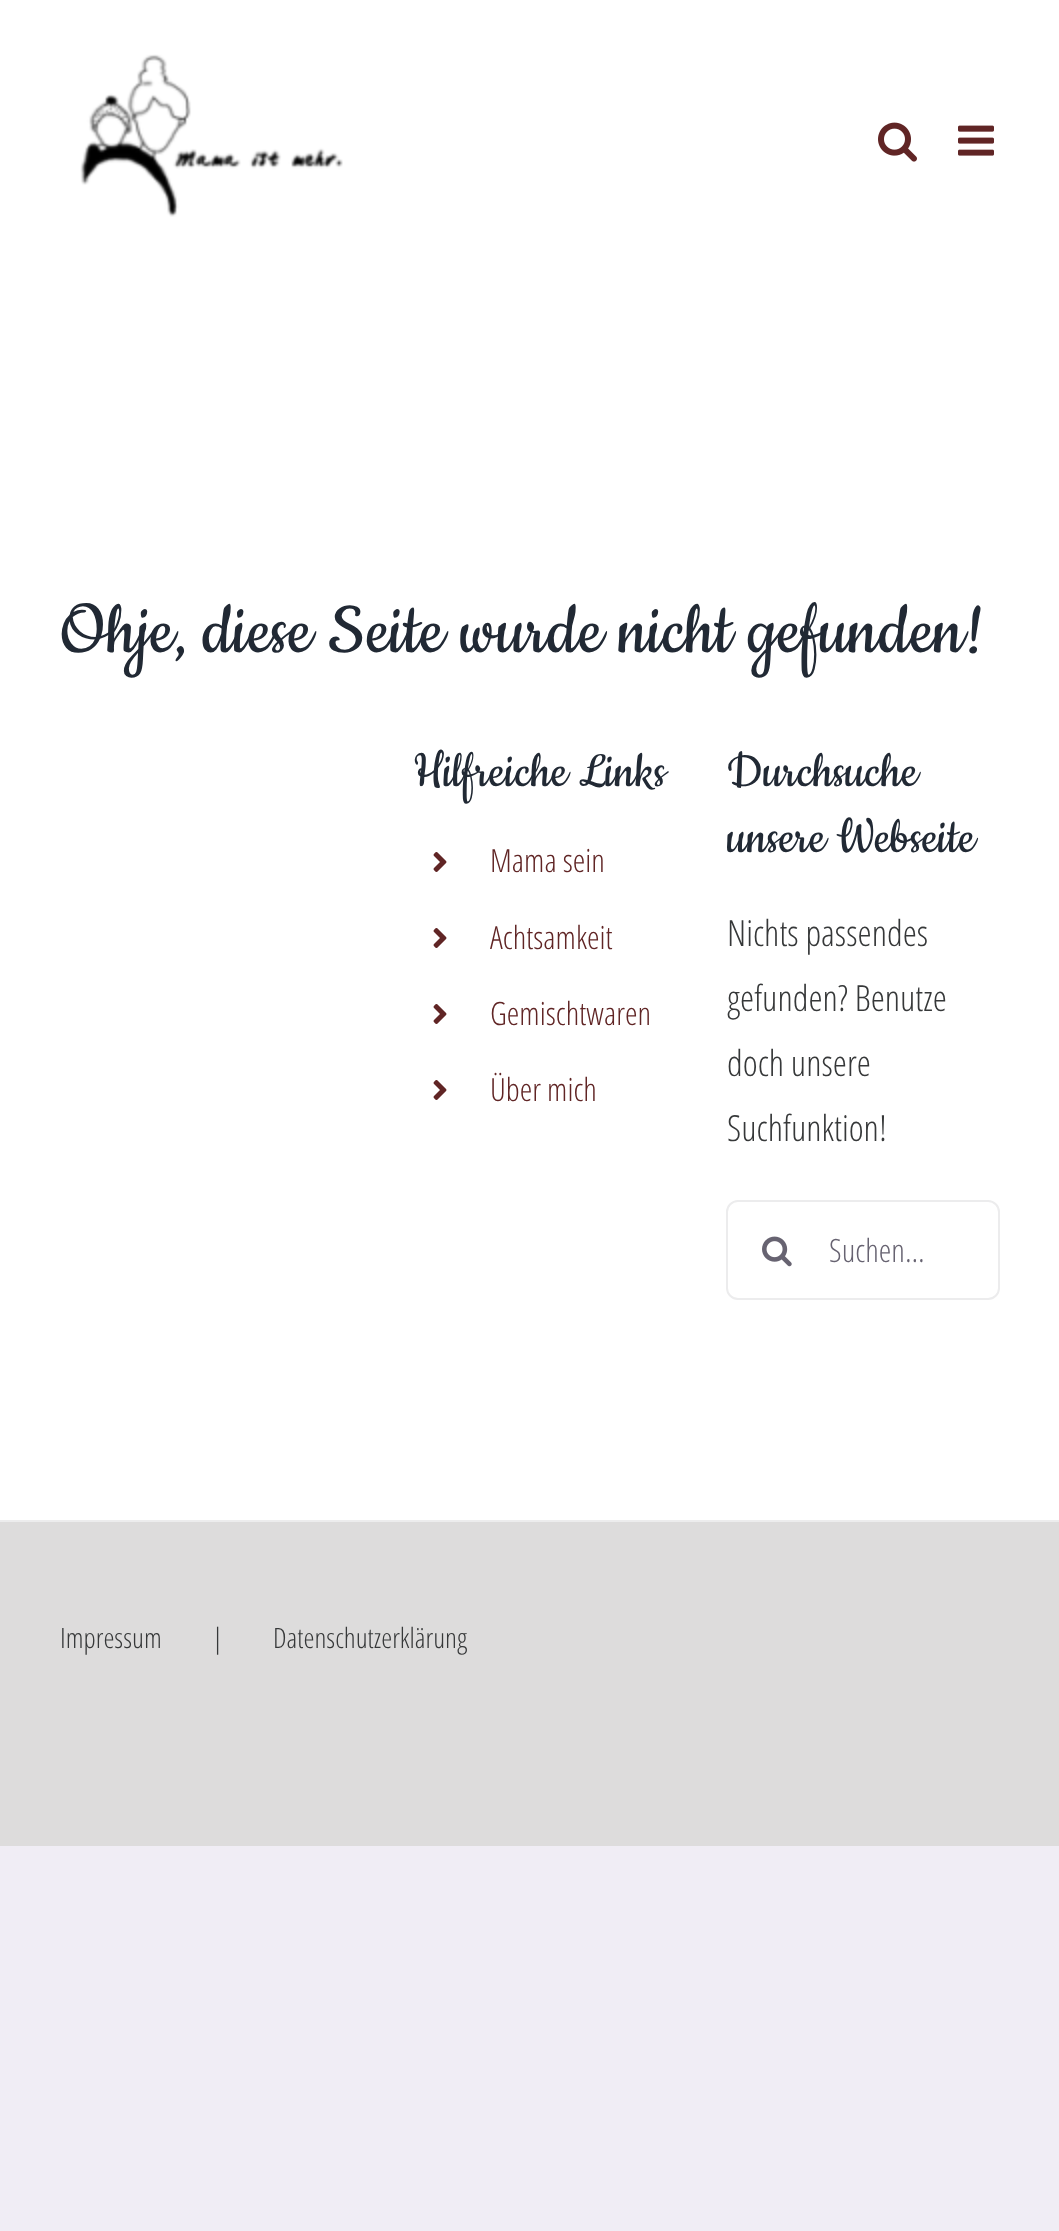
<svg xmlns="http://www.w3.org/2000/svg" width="1059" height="2231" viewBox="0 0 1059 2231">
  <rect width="100%" height="100%" fill="#f0edf5"/>
  <path d="M0 0h1059v1520H0z" fill="#fff"/>
  <image x="80" y="54" width="263" height="163" href="img/1.png"/>
  <image x="878" y="122" width="39" height="40" href="img/2.png"/>
  <image x="958" y="125" width="36" height="31" href="img/3.png"/>
  <image x="433" y="852" width="14" height="20" href="img/4.png"/>
  <image x="433" y="928" width="14" height="20" href="img/4.png"/>
  <image x="433" y="1004" width="14" height="20" href="img/4.png"/>
  <image x="433" y="1080" width="14" height="20" href="img/4.png"/>
  <rect x="727" y="1201" width="272" height="98" rx="11" fill="none" stroke="#ececed" stroke-width="2"/>
  <image x="762" y="1236" width="30" height="31" href="img/5.png"/>
  <path d="M0 1522h1059v324H0z" fill="#dddcdc"/>
  <path d="M0 1520h1059v2H0z" fill="#ececed"/>
  <text x="60" y="652" font-family="Cookie" font-size="80.5" fill="#212934">Ohje, diese Seite wurde nicht gefunden!</text>
  <text x="413" y="786" font-family="Cookie" font-size="55.25" fill="#212934">Hilfreiche Links</text>
  <g font-family="Open Sans Condensed" font-size="32" font-weight="300" fill="#602525">
    <text x="490" y="872">Mama sein</text>
    <text x="490" y="949">Achtsamkeit</text>
    <text x="490" y="1025">Gemischtwaren</text>
    <text x="490" y="1101">Über mich</text>
  </g>
  <g font-family="Cookie" font-size="55.25" fill="#212934">
    <text x="727" y="786">Durchsuche</text>
    <text x="727" y="852">unsere Webseite</text>
  </g>
  <g font-family="Open Sans Condensed" font-size="36" font-weight="300" fill="#363839">
    <text x="727" y="946">Nichts passendes</text>
    <text x="727" y="1011">gefunden? Benutze</text>
    <text x="727" y="1076">doch unsere</text>
    <text x="727" y="1141">Suchfunktion!</text>
  </g>
  <text x="829" y="1262" font-family="Open Sans Condensed" font-size="32" font-weight="300" fill="#676371">Suchen...</text>
  <g font-family="Open Sans Condensed" font-size="28" font-weight="300" fill="#363839">
    <text x="60" y="1648">Impressum</text>
    <text x="212" y="1648">|</text>
    <text x="273" y="1648">Datenschutzerklärung</text>
  </g>
</svg>
